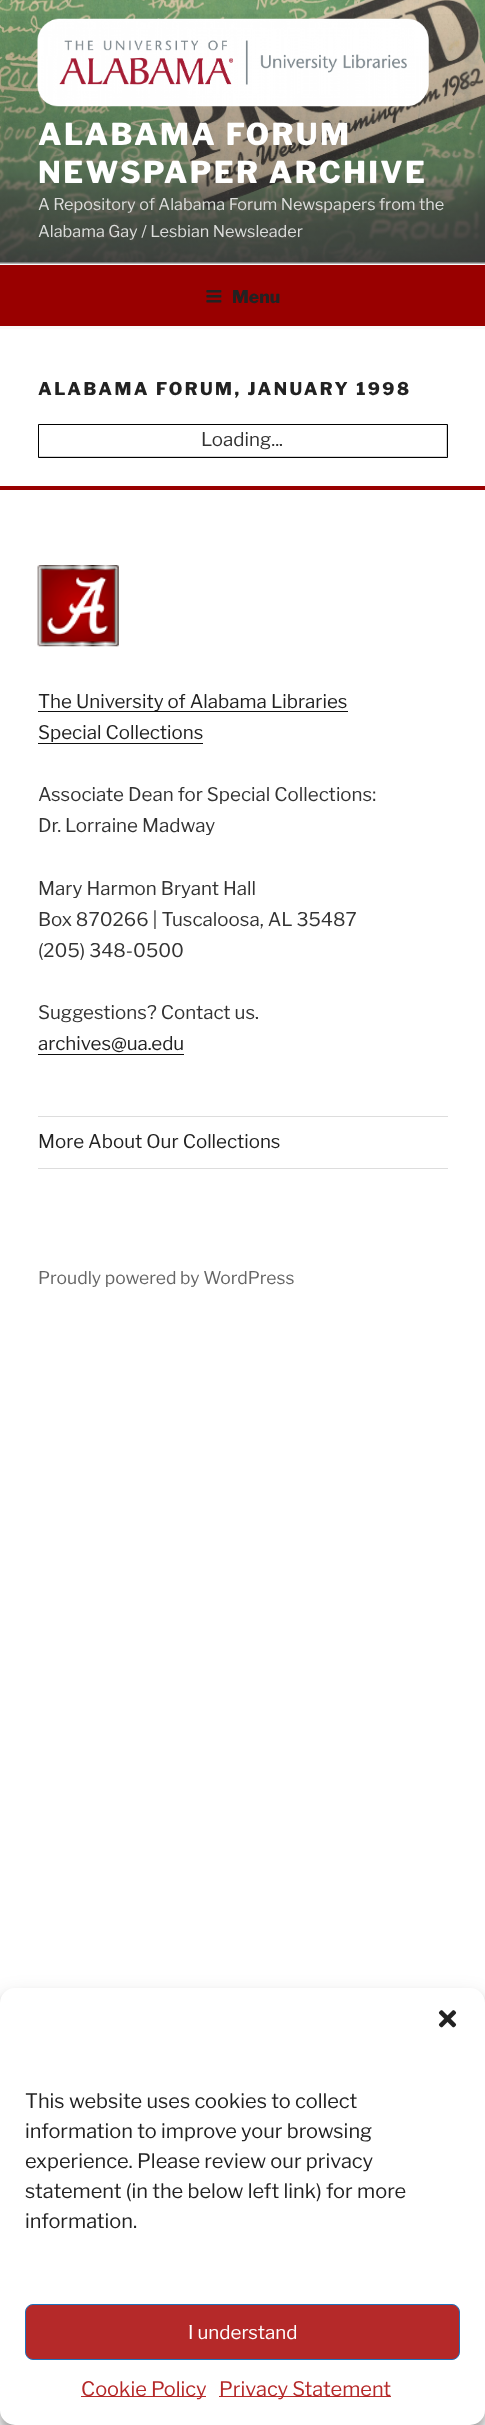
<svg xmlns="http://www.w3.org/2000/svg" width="485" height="2425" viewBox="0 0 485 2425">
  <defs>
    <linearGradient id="g1" gradientUnits="userSpaceOnUse" x1="243" y1="0" x2="243" y2="264"><stop offset="0" stop-color="#000" stop-opacity="0"/><stop offset="0.75" stop-color="#000" stop-opacity="0.3"/><stop offset="1" stop-color="#000" stop-opacity="0.3"/></linearGradient>
  </defs>
  <rect width="100%" height="100%" fill="#fff"/>
  <path d="M0 262h485v67H0z" fill="#fafafa"/>
  <image x="0" y="0" width="485" height="263" href="img/1.png"/>
  <path d="M0 14h485v250H0z" fill="url(#g1)"/>
  <image x="37" y="18" width="392" height="89" href="img/2.png"/>
  <path d="M0 265h485v61H0z" fill="#900"/>
  <image x="206" y="290" width="16" height="13" href="img/3.png"/>
  <path d="M38.5 424.5h409v33H38.5z" fill="#d3d3d3" stroke="#000"/>
  <path d="M39 425h407v31H39z" fill="#fff"/>
  <path d="M0 486h485v4H0z" fill="#900"/>
  <image x="37" y="565" width="82" height="82" href="img/4.png"/>
  <path d="M38 711h310v1H38z" fill="#0f0f0f"/>
  <path d="M38 743h165v1H38z" fill="#0f0f0f"/>
  <path d="M38 1054h146v1H38z" fill="#0f0f0f"/>
  <path d="M38 1116h410v1H38z" fill="#ddd"/>
  <path d="M38 1168h410v1H38z" fill="#ddd"/>
  <rect y="1995" width="485" height="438" rx="15" fill="#0000003b" filter="blur(4px)"/>
  <rect y="2000" width="485" height="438" rx="15" fill="#00000030" filter="blur(12.5px)"/>
  <rect y="1988" width="485" height="437" rx="15" fill="#fff"/>
  <image x="438" y="2010" width="19" height="18" href="img/5.png"/>
  <rect x="25.5" y="2304.5" width="434" height="55" rx="7.5" fill="#b52929" stroke="#1e73be"/>
  <path d="M81 2396h125v1H81z" fill="#b52929"/>
  <path d="M219 2396h172v1H219z" fill="#b52929"/>
  <g font-family="Libre Franklin" font-size="30" font-weight="100" letter-spacing="2.4" fill="#fff">
    <text x="38" y="145">ALABAMA FORUM</text>
    <text x="38" y="183">NEWSPAPER ARCHIVE</text>
  </g>
  <g font-family="'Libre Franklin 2'" font-size="16.25" font-weight="100" fill="#dcdddb">
    <text x="38" y="210">A Repository of Alabama Forum Newspapers from the</text>
    <text x="38" y="237">Alabama Gay / Lesbian Newsleader</text>
  </g>
  <text x="232" y="303" font-family="Libre Franklin" font-size="17.5" font-weight="100" fill="#222">Menu</text>
  <text x="38" y="395" font-family="Libre Franklin" font-size="17.5" font-weight="100" letter-spacing="2.45" fill="#222">ALABAMA FORUM, JANUARY 1998</text>
  <text x="201" y="446" font-family="'Libre Franklin 2'" font-size="18.75" font-weight="100" fill="#333">Loading...</text>
  <g font-family="'Libre Franklin 2'" font-size="18.75" font-weight="100" fill="#222">
    <text x="38" y="708">The University of Alabama Libraries</text>
    <text x="38" y="739">Special Collections</text>
  </g>
  <g font-family="'Libre Franklin 2'" font-size="18.75" font-weight="100" fill="#333">
    <text x="38" y="801">Associate Dean for Special Collections:</text>
    <text x="38" y="832">Dr. Lorraine Madway</text>
    <text x="38" y="895">Mary Harmon Bryant Hall</text>
    <text x="38" y="926">Box 870266 | Tuscaloosa, AL 35487</text>
    <text x="38" y="957">(205) 348-0500</text>
    <text x="38" y="1019">Suggestions? Contact us.</text>
  </g>
  <g font-family="'Libre Franklin 2'" font-size="18.75" font-weight="100" fill="#222">
    <text x="38" y="1050">archives@ua.edu</text>
    <text x="38" y="1148">More About Our Collections</text>
  </g>
  <text x="38" y="1284" font-family="'Libre Franklin 2'" font-size="17.5" font-weight="100" fill="#666">Proudly powered by WordPress</text>
  <g font-family="'Libre Franklin 2'" font-size="20" font-weight="100" fill="#222">
    <text x="25" y="2108">This website uses cookies to collect</text>
    <text x="25" y="2138">information to improve your browsing</text>
    <text x="25" y="2168">experience. Please review our privacy</text>
    <text x="25" y="2198">statement (in the below left link) for more</text>
    <text x="25" y="2228">information.</text>
  </g>
  <text x="188" y="2339" font-family="'Libre Franklin 2'" font-size="18.75" font-weight="100" fill="#fff">I understand</text>
  <g font-family="'Libre Franklin 2'" font-size="20" font-weight="100" fill="#b52929">
    <text x="81" y="2396">Cookie Policy</text>
    <text x="219" y="2396">Privacy Statement</text>
  </g>
</svg>
